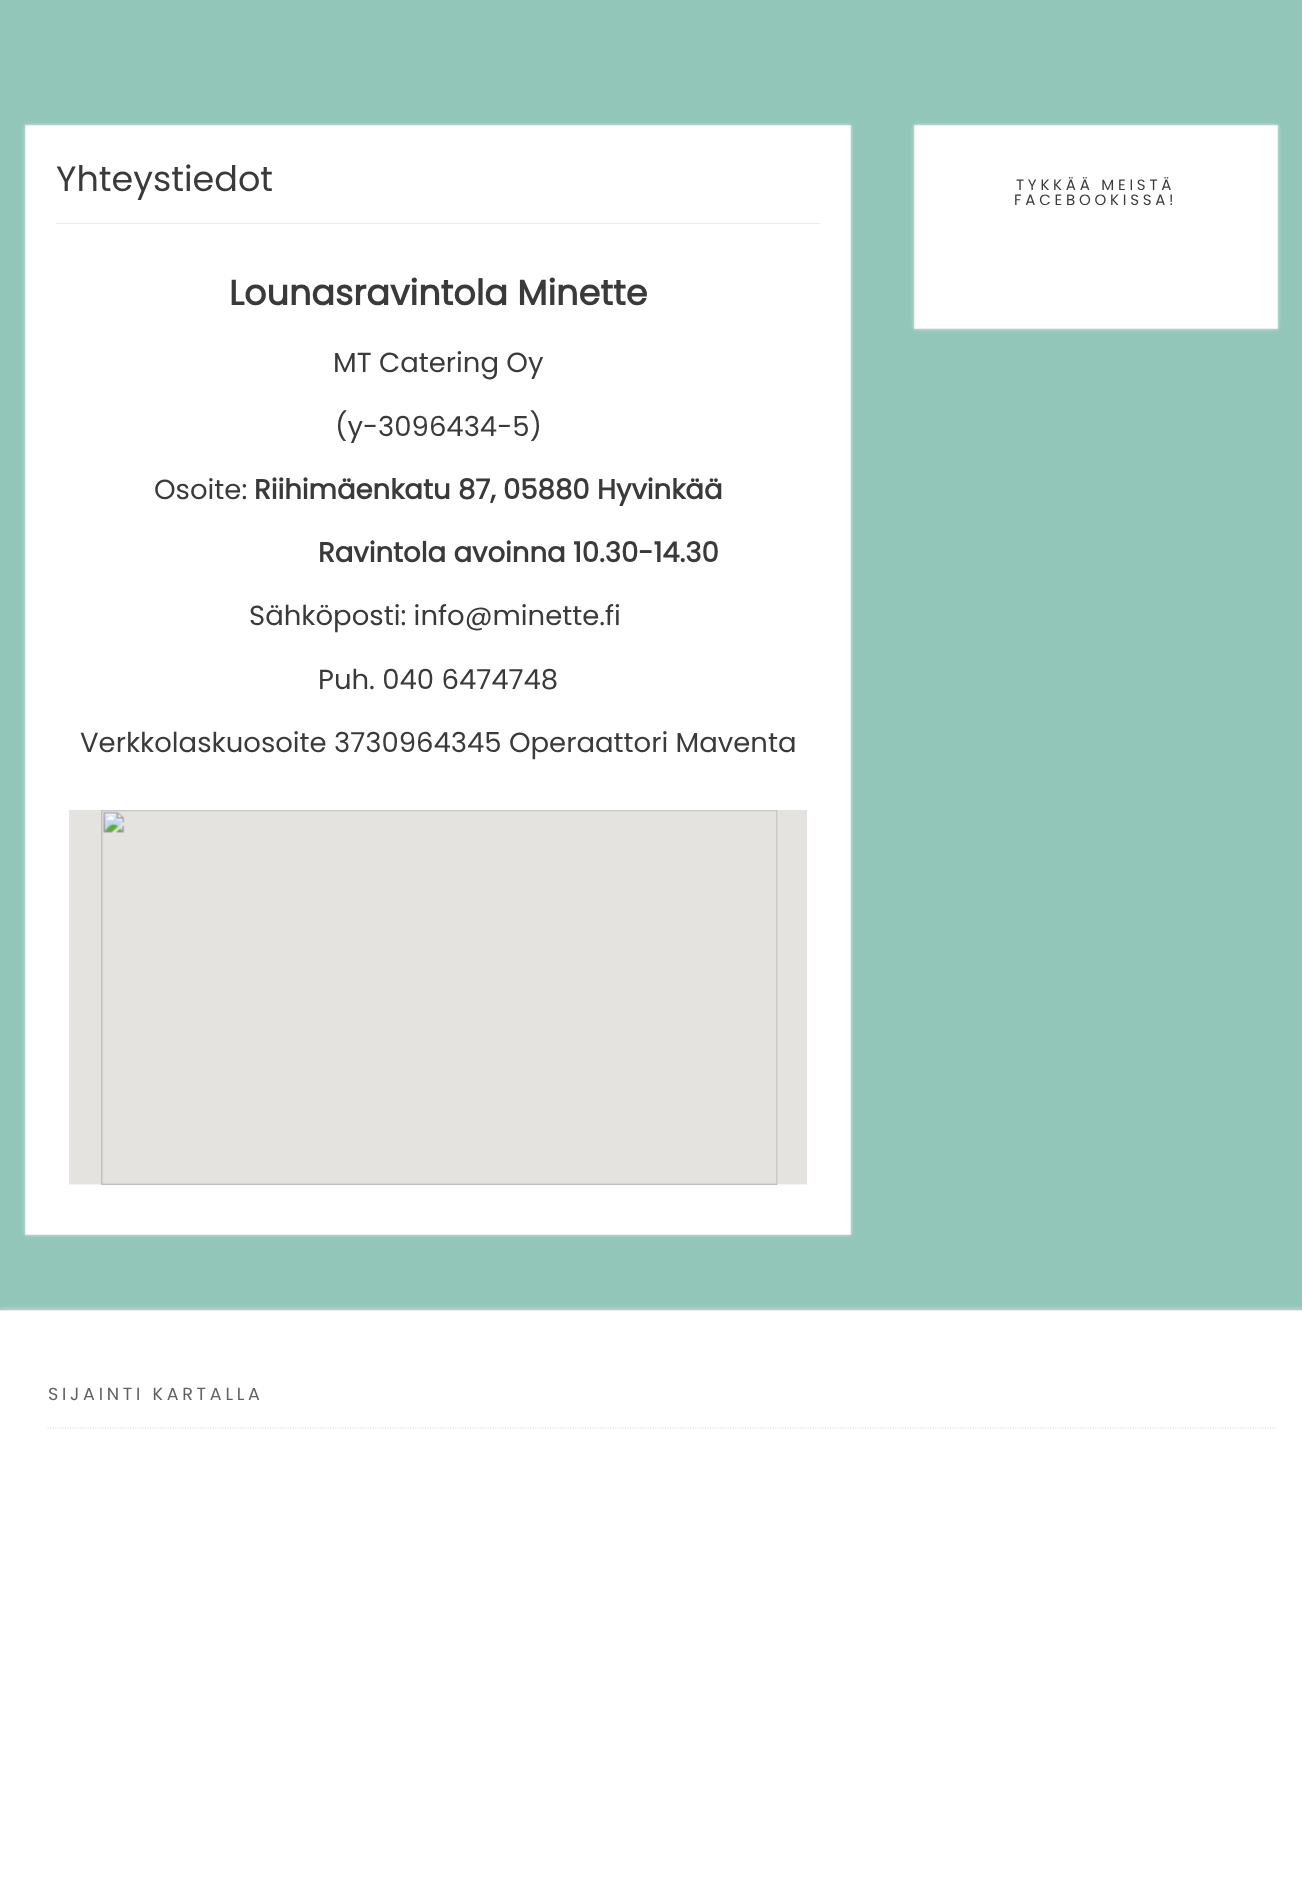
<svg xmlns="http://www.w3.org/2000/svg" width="1302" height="1899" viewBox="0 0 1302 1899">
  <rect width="100%" height="100%" fill="#91c6b9"/>
  <path d="M25 125h826v1110H25z" fill="#eeeeeeb8" filter="blur(2px)"/>
  <path d="M25.5 125.5h825v1109H25.5z" fill="#fff" stroke="#f0f0f0"/>
  <path d="M56 223h764v1H56z" fill="#ebebeb"/>
  <image x="69" y="810" width="739" height="375" href="img/1.png"/>
  <path d="M914 125h364v204H914z" fill="#eeeeeeb8" filter="blur(2px)"/>
  <path d="M914.5 125.5h363v203H914.5z" fill="#fff" stroke="#f0f0f0"/>
  <path d="M0 1308h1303v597H0z" fill="#eeeeee66" filter="blur(2px)"/>
  <path d="M0 1311h1302v588H0z" fill="#fff"/>
  <path d="M0 1310h1302v1H0z" fill="#ebebeb"/>
  <path d="M47.5 1428H1277.5" fill="none" stroke="#dbdbdb" stroke-width="1.2" stroke-dasharray="1.25 1.25"/>
  <text x="56" y="191" font-family="Poppins" font-size="35" fill="#3a3a3a">Yhteystiedot</text>
  <text x="229" y="305" font-family="Poppins" font-size="35" font-weight="bold" fill="#3a3a3a">Lounasravintola Minette</text>
  <g font-family="Poppins" font-size="27.5" fill="#3a3a3a">
    <text x="333" y="372">MT Catering Oy</text>
    <text x="335" y="436">(y-3096434-5)</text>
    <text x="154" y="499">Osoite:</text>
  </g>
  <g font-family="Poppins" font-size="27.5" font-weight="bold" fill="#3a3a3a">
    <text x="254" y="499">Riihimäenkatu 87, 05880 Hyvinkää</text>
    <text x="318" y="562">Ravintola avoinna 10.30-14.30</text>
  </g>
  <g font-family="Poppins" font-size="27.5" fill="#3a3a3a">
    <text x="249" y="625">Sähköposti: info@minette.fi</text>
    <text x="318" y="689">Puh. 040 6474748</text>
    <text x="80" y="752">Verkkolaskuosoite 3730964345 Operaattori Maventa</text>
  </g>
  <g font-family="Poppins" font-size="15" letter-spacing="3.75" fill="#3a3a3a">
    <text x="1016" y="190">TYKKÄÄ MEISTÄ</text>
    <text x="1014" y="205">FACEBOOKISSA!</text>
  </g>
  <text x="48" y="1400" font-family="Poppins" font-size="17.5" letter-spacing="3.75" fill="#616161">SIJAINTI KARTALLA</text>
</svg>
